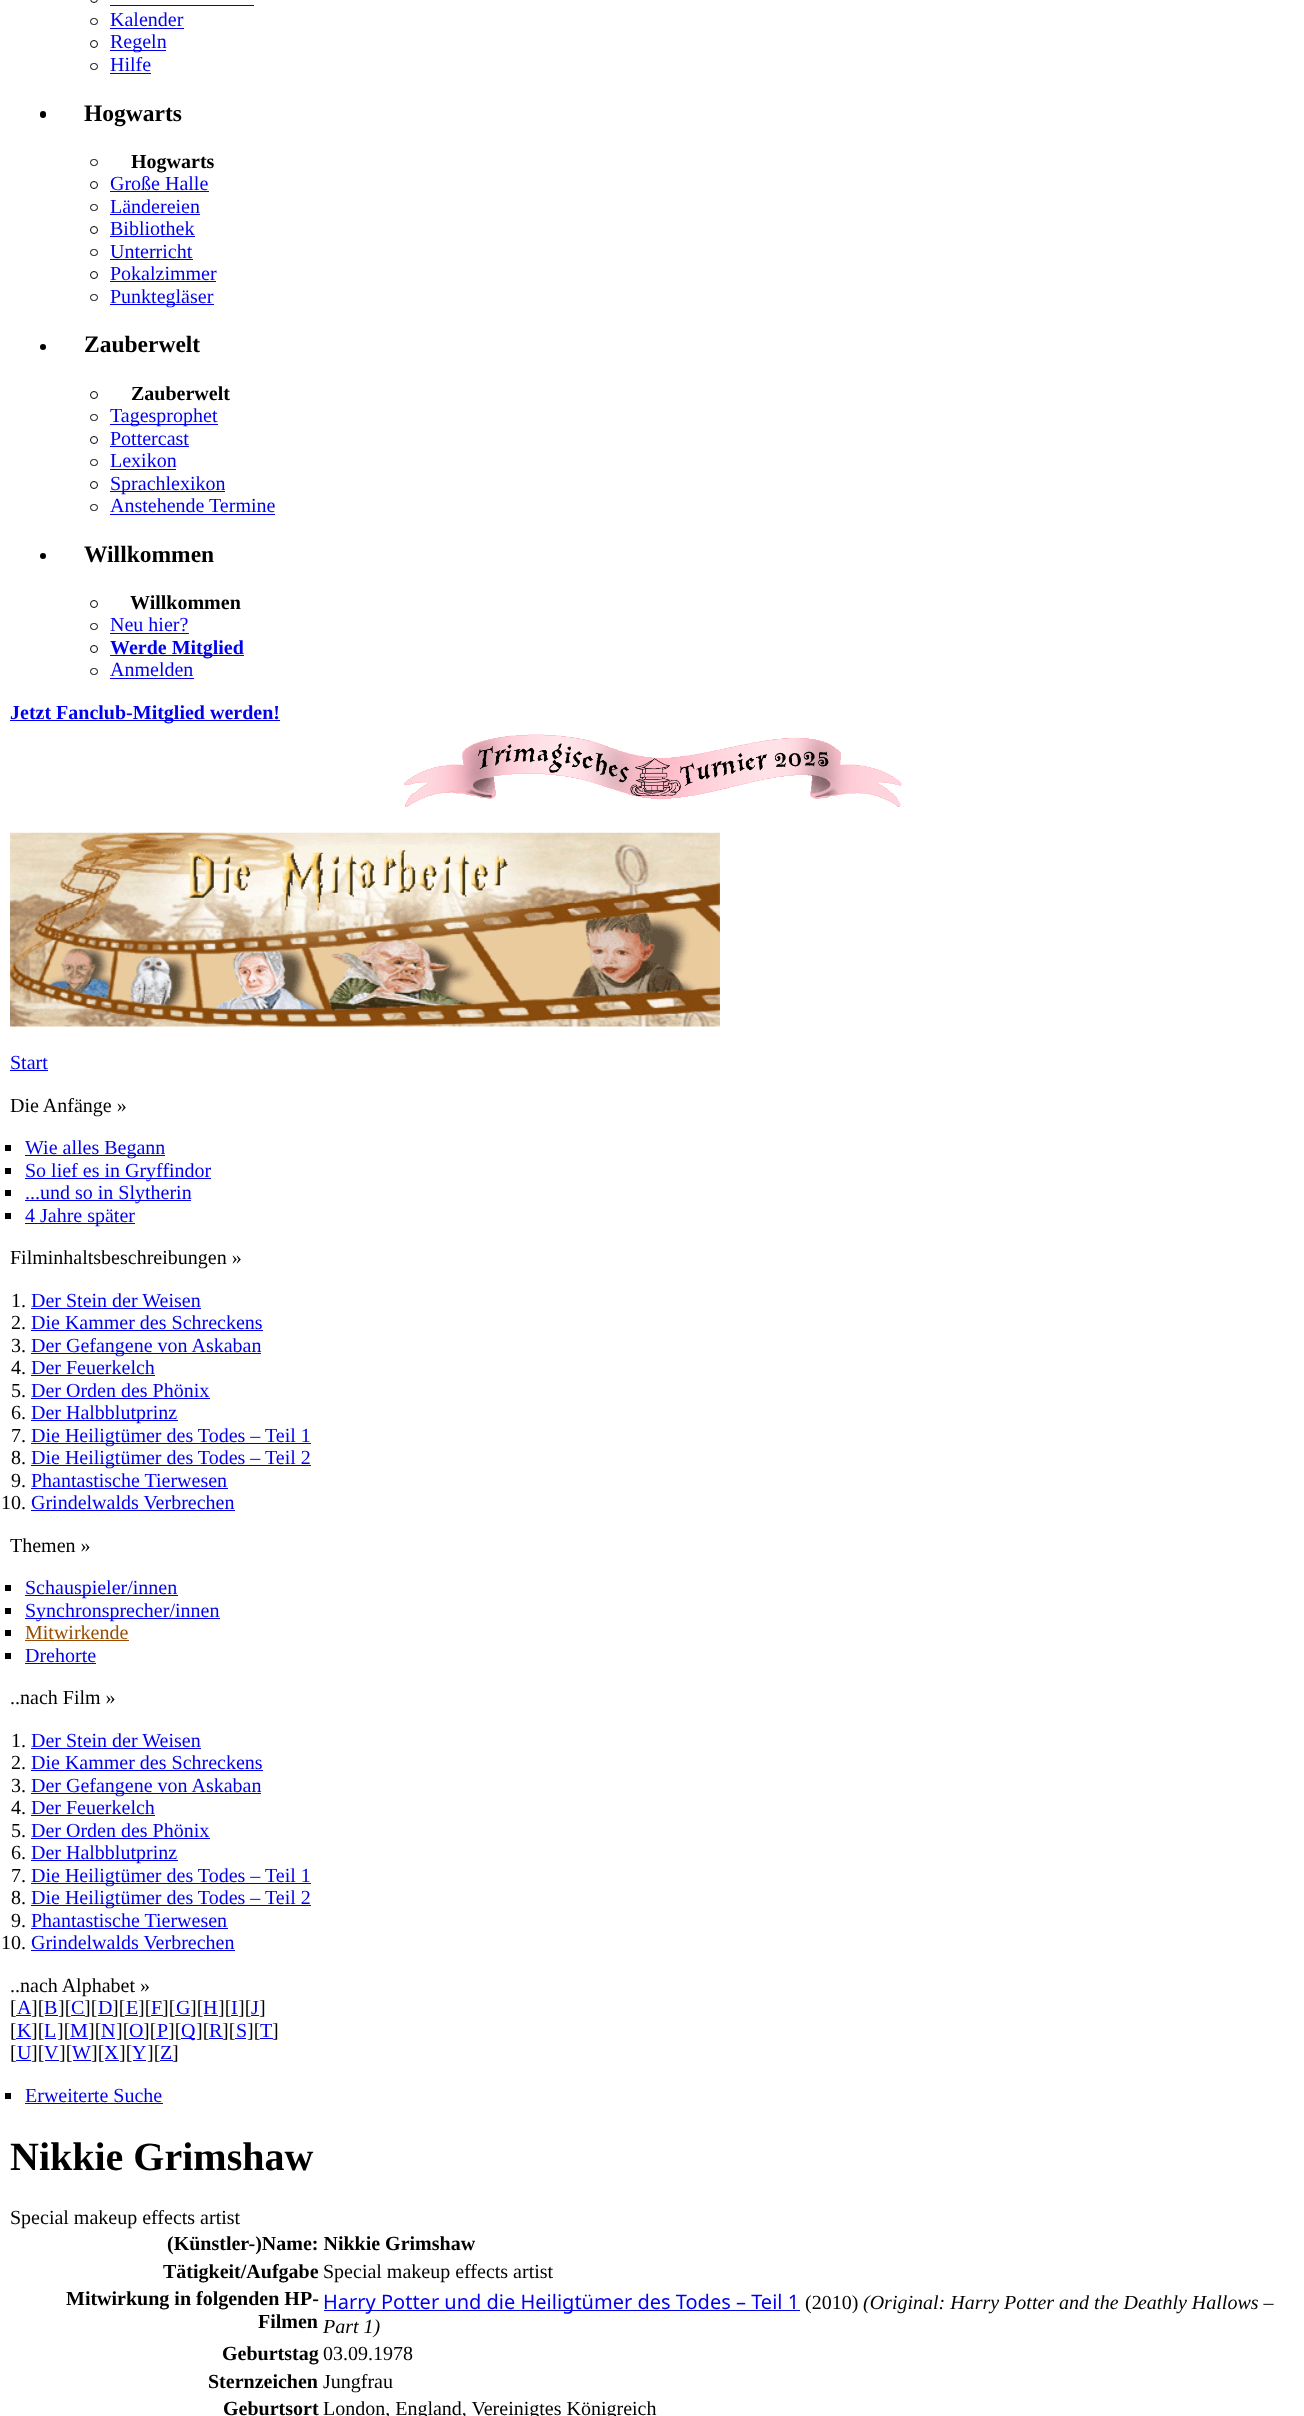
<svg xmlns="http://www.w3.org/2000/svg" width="1304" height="2416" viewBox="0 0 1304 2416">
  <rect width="100%" height="100%" fill="#fff"/>
  <circle cx="94" cy="-1" r="3.5" fill="none" stroke="#000"/>
  <path d="M110 5h144v1H110z" fill="#00e"/>
  <rect x="90.5" y="18.5" width="7" height="6" rx="3" fill="none" stroke="#000"/>
  <path d="M110 28h74v1H110z" fill="#00e"/>
  <circle cx="94" cy="44" r="3.5" fill="none" stroke="#000"/>
  <path d="M110 50h56v1H110z" fill="#00e"/>
  <rect x="90.5" y="63.5" width="7" height="6" rx="3" fill="none" stroke="#000"/>
  <path d="M110 73h41v1H110z" fill="#00e"/>
  <rect x="40" y="111" width="6" height="7" rx="3" fill="#000"/>
  <rect x="90.5" y="159.5" width="7" height="6" rx="3" fill="none" stroke="#000"/>
  <circle cx="94" cy="185" r="3.5" fill="none" stroke="#000"/>
  <path d="M110 191h99v1H110z" fill="#00e"/>
  <rect x="90.5" y="204.5" width="7" height="6" rx="3" fill="none" stroke="#000"/>
  <path d="M110 214h90v1H110z" fill="#00e"/>
  <circle cx="94" cy="230" r="3.5" fill="none" stroke="#000"/>
  <path d="M110 236h85v1H110z" fill="#00e"/>
  <rect x="90.5" y="249.5" width="7" height="6" rx="3" fill="none" stroke="#000"/>
  <path d="M110 259h83v1H110z" fill="#00e"/>
  <circle cx="94" cy="275" r="3.5" fill="none" stroke="#000"/>
  <path d="M110 281h106v1H110z" fill="#00e"/>
  <rect x="90.5" y="294.5" width="7" height="6" rx="3" fill="none" stroke="#000"/>
  <path d="M110 304h104v1H110z" fill="#00e"/>
  <circle cx="43" cy="347" r="3" fill="#000"/>
  <circle cx="94" cy="395" r="3.5" fill="none" stroke="#000"/>
  <rect x="90.5" y="414.5" width="7" height="6" rx="3" fill="none" stroke="#000"/>
  <path d="M110 424h108v1H110z" fill="#00e"/>
  <circle cx="94" cy="440" r="3.5" fill="none" stroke="#000"/>
  <path d="M110 446h79v1H110z" fill="#00e"/>
  <rect x="90.5" y="459.5" width="7" height="6" rx="3" fill="none" stroke="#000"/>
  <path d="M110 469h66v1H110z" fill="#00e"/>
  <circle cx="94" cy="485" r="3.5" fill="none" stroke="#000"/>
  <path d="M110 491h115v1H110z" fill="#00e"/>
  <rect x="90.5" y="504.5" width="7" height="6" rx="3" fill="none" stroke="#000"/>
  <path d="M110 514h165v1H110z" fill="#00e"/>
  <circle cx="43" cy="556" r="3" fill="#000"/>
  <circle cx="94" cy="604" r="3.5" fill="none" stroke="#000"/>
  <rect x="90.5" y="623.5" width="7" height="6" rx="3" fill="none" stroke="#000"/>
  <path d="M110 633h79v1H110z" fill="#00e"/>
  <circle cx="94" cy="649" r="3.5" fill="none" stroke="#000"/>
  <path d="M110 655h134v1H110z" fill="#00e"/>
  <rect x="90.5" y="668.5" width="7" height="6" rx="3" fill="none" stroke="#000"/>
  <path d="M110 678h84v1H110z" fill="#00e"/>
  <path d="M10 720h270v1H10z" fill="#00e"/>
  <image x="404" y="734" width="498" height="73" href="img/1.png"/>
  <image x="10" y="832" width="710" height="195" href="img/2.png"/>
  <path d="M10 1070h38v1H10z" fill="#00e"/>
  <path d="M5 1145h6v6H5z" fill="#000"/>
  <path d="M25 1155h140v1H25z" fill="#00e"/>
  <path d="M5 1168h6v6H5z" fill="#000"/>
  <path d="M25 1178h186v1H25z" fill="#00e"/>
  <path d="M5 1190h6v6H5z" fill="#000"/>
  <path d="M25 1200h166v1H25z" fill="#00e"/>
  <path d="M5 1213h6v6H5z" fill="#000"/>
  <path d="M25 1223h110v1H25z" fill="#00e"/>
  <path d="M31 1308h170v1H31z" fill="#00e"/>
  <path d="M31 1330h232v1H31z" fill="#00e"/>
  <path d="M31 1353h230v1H31z" fill="#00e"/>
  <path d="M31 1375h124v1H31z" fill="#00e"/>
  <path d="M31 1398h179v1H31z" fill="#00e"/>
  <path d="M31 1420h147v1H31z" fill="#00e"/>
  <path d="M31 1443h280v1H31z" fill="#00e"/>
  <path d="M31 1465h280v1H31z" fill="#00e"/>
  <path d="M31 1488h197v1H31z" fill="#00e"/>
  <path d="M31 1510h204v1H31z" fill="#00e"/>
  <path d="M5 1585h6v6H5z" fill="#000"/>
  <path d="M25 1595h153v1H25z" fill="#00e"/>
  <path d="M5 1608h6v6H5z" fill="#000"/>
  <path d="M25 1618h195v1H25z" fill="#00e"/>
  <path d="M5 1630h6v6H5z" fill="#000"/>
  <path d="M25 1640h104v1H25z" fill="#994c00"/>
  <path d="M5 1653h6v6H5z" fill="#000"/>
  <path d="M25 1663h71v1H25z" fill="#00e"/>
  <path d="M31 1748h170v1H31z" fill="#00e"/>
  <path d="M31 1770h232v1H31z" fill="#00e"/>
  <path d="M31 1793h230v1H31z" fill="#00e"/>
  <path d="M31 1815h124v1H31z" fill="#00e"/>
  <path d="M31 1838h179v1H31z" fill="#00e"/>
  <path d="M31 1860h147v1H31z" fill="#00e"/>
  <path d="M31 1883h280v1H31z" fill="#00e"/>
  <path d="M31 1905h280v1H31z" fill="#00e"/>
  <path d="M31 1928h197v1H31z" fill="#00e"/>
  <path d="M31 1950h204v1H31z" fill="#00e"/>
  <path d="M16 2015h15v1H16z" fill="#00e"/>
  <path d="M45 2015h13v1H45z" fill="#00e"/>
  <path d="M71 2015h14v1H71z" fill="#00e"/>
  <path d="M98 2015h15v1H98z" fill="#00e"/>
  <path d="M125 2015h13v1H125z" fill="#00e"/>
  <path d="M151 2015h12v1H151z" fill="#00e"/>
  <path d="M175 2015h15v1H175z" fill="#00e"/>
  <path d="M204 2015h14v1H204z" fill="#00e"/>
  <path d="M231 2015h7v1H231z" fill="#00e"/>
  <path d="M251 2015h8v1H251z" fill="#00e"/>
  <path d="M16 2038h15v1H16z" fill="#00e"/>
  <path d="M45 2038h11v1H45z" fill="#00e"/>
  <path d="M70 2038h18v1H70z" fill="#00e"/>
  <path d="M101 2038h14v1H101z" fill="#00e"/>
  <path d="M129 2038h15v1H129z" fill="#00e"/>
  <path d="M156 2038h12v1H156z" fill="#00e"/>
  <path d="M181 2038h14v1H181z" fill="#00e"/>
  <path d="M209 2038h14v1H209z" fill="#00e"/>
  <path d="M235 2038h11v1H235z" fill="#00e"/>
  <path d="M260 2038h13v1H260z" fill="#00e"/>
  <path d="M16 2060h15v1H16z" fill="#00e"/>
  <path d="M45 2060h14v1H45z" fill="#00e"/>
  <path d="M73 2060h18v1H73z" fill="#00e"/>
  <path d="M105 2060h14v1H105z" fill="#00e"/>
  <path d="M133 2060h13v1H133z" fill="#00e"/>
  <path d="M160 2060h13v1H160z" fill="#00e"/>
  <path d="M5 2093h6v6H5z" fill="#000"/>
  <path d="M25 2103h138v1H25z" fill="#00e"/>
  <path d="M324 2310h476v1H324z" fill="#00e"/>
  <g font-family="Liberation Serif" font-size="20" fill="#00e">
    <text x="110" y="26">Kalender</text>
    <text x="110" y="48">Regeln</text>
    <text x="110" y="71">Hilfe</text>
  </g>
  <text x="84" y="121" font-family="Liberation Serif" font-size="23.5" font-weight="bold" fill="#000">Hogwarts</text>
  <text x="131" y="168" font-family="Liberation Serif" font-size="20" font-weight="bold" fill="#000">Hogwarts</text>
  <g font-family="Liberation Serif" font-size="20" fill="#00e">
    <text x="110" y="190">Große Halle</text>
    <text x="110" y="213">Ländereien</text>
    <text x="110" y="235">Bibliothek</text>
    <text x="110" y="258">Unterricht</text>
    <text x="110" y="280">Pokalzimmer</text>
    <text x="110" y="303">Punktegläser</text>
  </g>
  <text x="84" y="352" font-family="Liberation Serif" font-size="23.5" font-weight="bold" fill="#000">Zauberwelt</text>
  <text x="131" y="400" font-family="Liberation Serif" font-size="20" font-weight="bold" fill="#000">Zauberwelt</text>
  <g font-family="Liberation Serif" font-size="20" fill="#00e">
    <text x="110" y="422">Tagesprophet</text>
    <text x="110" y="445">Pottercast</text>
    <text x="110" y="467">Lexikon</text>
    <text x="110" y="490">Sprachlexikon</text>
    <text x="110" y="512">Anstehende Termine</text>
  </g>
  <text x="84" y="562" font-family="Liberation Serif" font-size="23.5" font-weight="bold" fill="#000">Willkommen</text>
  <text x="130" y="609" font-family="Liberation Serif" font-size="20" font-weight="bold" fill="#000">Willkommen</text>
  <text x="110" y="631" font-family="Liberation Serif" font-size="20" fill="#00e">Neu hier?</text>
  <text x="110" y="654" font-family="Liberation Serif" font-size="20" font-weight="bold" fill="#00e">Werde Mitglied</text>
  <text x="110" y="676" font-family="Liberation Serif" font-size="20" fill="#00e">Anmelden</text>
  <text x="10" y="719" font-family="Liberation Serif" font-size="20" font-weight="bold" fill="#00e">Jetzt Fanclub-Mitglied werden!</text>
  <text x="10" y="1069" font-family="Liberation Serif" font-size="20" fill="#00e">Start</text>
  <text x="10" y="1112" font-family="Liberation Serif" font-size="20" fill="#000">Die Anfänge »</text>
  <g font-family="Liberation Serif" font-size="20" fill="#00e">
    <text x="25" y="1154">Wie alles Begann</text>
    <text x="25" y="1177">So lief es in Gryffindor</text>
    <text x="25" y="1199">...und so in Slytherin</text>
    <text x="25" y="1222">4 Jahre später</text>
  </g>
  <g font-family="Liberation Serif" font-size="20" fill="#000">
    <text x="10" y="1264">Filminhaltsbeschreibungen »</text>
    <text x="11" y="1307">1.</text>
  </g>
  <text x="31" y="1307" font-family="Liberation Serif" font-size="20" fill="#00e">Der Stein der Weisen</text>
  <text x="11" y="1329" font-family="Liberation Serif" font-size="20" fill="#000">2.</text>
  <text x="31" y="1329" font-family="Liberation Serif" font-size="20" fill="#00e">Die Kammer des Schreckens</text>
  <text x="11" y="1352" font-family="Liberation Serif" font-size="20" fill="#000">3.</text>
  <text x="31" y="1352" font-family="Liberation Serif" font-size="20" fill="#00e">Der Gefangene von Askaban</text>
  <text x="11" y="1374" font-family="Liberation Serif" font-size="20" fill="#000">4.</text>
  <text x="31" y="1374" font-family="Liberation Serif" font-size="20" fill="#00e">Der Feuerkelch</text>
  <text x="11" y="1397" font-family="Liberation Serif" font-size="20" fill="#000">5.</text>
  <text x="31" y="1397" font-family="Liberation Serif" font-size="20" fill="#00e">Der Orden des Phönix</text>
  <text x="11" y="1419" font-family="Liberation Serif" font-size="20" fill="#000">6.</text>
  <text x="31" y="1419" font-family="Liberation Serif" font-size="20" fill="#00e">Der Halbblutprinz</text>
  <text x="11" y="1442" font-family="Liberation Serif" font-size="20" fill="#000">7.</text>
  <text x="31" y="1442" font-family="Liberation Serif" font-size="20" fill="#00e">Die Heiligtümer des Todes – Teil 1</text>
  <text x="11" y="1464" font-family="Liberation Serif" font-size="20" fill="#000">8.</text>
  <text x="31" y="1464" font-family="Liberation Serif" font-size="20" fill="#00e">Die Heiligtümer des Todes – Teil 2</text>
  <text x="11" y="1487" font-family="Liberation Serif" font-size="20" fill="#000">9.</text>
  <text x="31" y="1487" font-family="Liberation Serif" font-size="20" fill="#00e">Phantastische Tierwesen</text>
  <text x="1" y="1509" font-family="Liberation Serif" font-size="20" fill="#000">10.</text>
  <text x="31" y="1509" font-family="Liberation Serif" font-size="20" fill="#00e">Grindelwalds Verbrechen</text>
  <text x="10" y="1552" font-family="Liberation Serif" font-size="20" fill="#000">Themen »</text>
  <g font-family="Liberation Serif" font-size="20" fill="#00e">
    <text x="25" y="1594">Schauspieler/innen</text>
    <text x="25" y="1617">Synchronsprecher/innen</text>
  </g>
  <text x="25" y="1639" font-family="Liberation Serif" font-size="20" fill="#994c00">Mitwirkende</text>
  <text x="25" y="1662" font-family="Liberation Serif" font-size="20" fill="#00e">Drehorte</text>
  <g font-family="Liberation Serif" font-size="20" fill="#000">
    <text x="10" y="1704">..nach Film »</text>
    <text x="11" y="1747">1.</text>
  </g>
  <text x="31" y="1747" font-family="Liberation Serif" font-size="20" fill="#00e">Der Stein der Weisen</text>
  <text x="11" y="1769" font-family="Liberation Serif" font-size="20" fill="#000">2.</text>
  <text x="31" y="1769" font-family="Liberation Serif" font-size="20" fill="#00e">Die Kammer des Schreckens</text>
  <text x="11" y="1792" font-family="Liberation Serif" font-size="20" fill="#000">3.</text>
  <text x="31" y="1792" font-family="Liberation Serif" font-size="20" fill="#00e">Der Gefangene von Askaban</text>
  <text x="11" y="1814" font-family="Liberation Serif" font-size="20" fill="#000">4.</text>
  <text x="31" y="1814" font-family="Liberation Serif" font-size="20" fill="#00e">Der Feuerkelch</text>
  <text x="11" y="1837" font-family="Liberation Serif" font-size="20" fill="#000">5.</text>
  <text x="31" y="1837" font-family="Liberation Serif" font-size="20" fill="#00e">Der Orden des Phönix</text>
  <text x="11" y="1859" font-family="Liberation Serif" font-size="20" fill="#000">6.</text>
  <text x="31" y="1859" font-family="Liberation Serif" font-size="20" fill="#00e">Der Halbblutprinz</text>
  <text x="11" y="1882" font-family="Liberation Serif" font-size="20" fill="#000">7.</text>
  <text x="31" y="1882" font-family="Liberation Serif" font-size="20" fill="#00e">Die Heiligtümer des Todes – Teil 1</text>
  <text x="11" y="1904" font-family="Liberation Serif" font-size="20" fill="#000">8.</text>
  <text x="31" y="1904" font-family="Liberation Serif" font-size="20" fill="#00e">Die Heiligtümer des Todes – Teil 2</text>
  <text x="11" y="1927" font-family="Liberation Serif" font-size="20" fill="#000">9.</text>
  <text x="31" y="1927" font-family="Liberation Serif" font-size="20" fill="#00e">Phantastische Tierwesen</text>
  <text x="1" y="1949" font-family="Liberation Serif" font-size="20" fill="#000">10.</text>
  <text x="31" y="1949" font-family="Liberation Serif" font-size="20" fill="#00e">Grindelwalds Verbrechen</text>
  <g font-family="Liberation Serif" font-size="20" fill="#000">
    <text x="10" y="1992">..nach Alphabet »</text>
    <text x="10" y="2014">[</text>
  </g>
  <text x="17" y="2014" font-family="Liberation Serif" font-size="20" fill="#00e">A</text>
  <text x="31" y="2014" font-family="Liberation Serif" font-size="20" fill="#000">][</text>
  <text x="44" y="2014" font-family="Liberation Serif" font-size="20" fill="#00e">B</text>
  <text x="58" y="2014" font-family="Liberation Serif" font-size="20" fill="#000">][</text>
  <text x="71" y="2014" font-family="Liberation Serif" font-size="20" fill="#00e">C</text>
  <text x="84" y="2014" font-family="Liberation Serif" font-size="20" fill="#000">][</text>
  <text x="98" y="2014" font-family="Liberation Serif" font-size="20" fill="#00e">D</text>
  <text x="112" y="2014" font-family="Liberation Serif" font-size="20" fill="#000">][</text>
  <text x="126" y="2014" font-family="Liberation Serif" font-size="20" fill="#00e">E</text>
  <text x="138" y="2014" font-family="Liberation Serif" font-size="20" fill="#000">][</text>
  <text x="151" y="2014" font-family="Liberation Serif" font-size="20" fill="#00e">F</text>
  <text x="162" y="2014" font-family="Liberation Serif" font-size="20" fill="#000">][</text>
  <text x="176" y="2014" font-family="Liberation Serif" font-size="20" fill="#00e">G</text>
  <text x="190" y="2014" font-family="Liberation Serif" font-size="20" fill="#000">][</text>
  <text x="203" y="2014" font-family="Liberation Serif" font-size="20" fill="#00e">H</text>
  <text x="218" y="2014" font-family="Liberation Serif" font-size="20" fill="#000">][</text>
  <text x="231" y="2014" font-family="Liberation Serif" font-size="20" fill="#00e">I</text>
  <text x="238" y="2014" font-family="Liberation Serif" font-size="20" fill="#000">][</text>
  <text x="251" y="2014" font-family="Liberation Serif" font-size="20" fill="#00e">J</text>
  <g font-family="Liberation Serif" font-size="20" fill="#000">
    <text x="259" y="2014">]</text>
    <text x="10" y="2037">[</text>
  </g>
  <text x="17" y="2037" font-family="Liberation Serif" font-size="20" fill="#00e">K</text>
  <text x="31" y="2037" font-family="Liberation Serif" font-size="20" fill="#000">][</text>
  <text x="44" y="2037" font-family="Liberation Serif" font-size="20" fill="#00e">L</text>
  <text x="57" y="2037" font-family="Liberation Serif" font-size="20" fill="#000">][</text>
  <text x="70" y="2037" font-family="Liberation Serif" font-size="20" fill="#00e">M</text>
  <text x="88" y="2037" font-family="Liberation Serif" font-size="20" fill="#000">][</text>
  <text x="101" y="2037" font-family="Liberation Serif" font-size="20" fill="#00e">N</text>
  <text x="116" y="2037" font-family="Liberation Serif" font-size="20" fill="#000">][</text>
  <text x="129" y="2037" font-family="Liberation Serif" font-size="20" fill="#00e">O</text>
  <text x="143" y="2037" font-family="Liberation Serif" font-size="20" fill="#000">][</text>
  <text x="157" y="2037" font-family="Liberation Serif" font-size="20" fill="#00e">P</text>
  <text x="168" y="2037" font-family="Liberation Serif" font-size="20" fill="#000">][</text>
  <text x="181" y="2037" font-family="Liberation Serif" font-size="20" fill="#00e">Q</text>
  <text x="196" y="2037" font-family="Liberation Serif" font-size="20" fill="#000">][</text>
  <text x="209" y="2037" font-family="Liberation Serif" font-size="20" fill="#00e">R</text>
  <text x="222" y="2037" font-family="Liberation Serif" font-size="20" fill="#000">][</text>
  <text x="236" y="2037" font-family="Liberation Serif" font-size="20" fill="#00e">S</text>
  <text x="247" y="2037" font-family="Liberation Serif" font-size="20" fill="#000">][</text>
  <text x="260" y="2037" font-family="Liberation Serif" font-size="20" fill="#00e">T</text>
  <g font-family="Liberation Serif" font-size="20" fill="#000">
    <text x="272" y="2037">]</text>
    <text x="10" y="2059">[</text>
  </g>
  <text x="17" y="2059" font-family="Liberation Serif" font-size="20" fill="#00e">U</text>
  <text x="31" y="2059" font-family="Liberation Serif" font-size="20" fill="#000">][</text>
  <text x="44" y="2059" font-family="Liberation Serif" font-size="20" fill="#00e">V</text>
  <text x="59" y="2059" font-family="Liberation Serif" font-size="20" fill="#000">][</text>
  <text x="72" y="2059" font-family="Liberation Serif" font-size="20" fill="#00e">W</text>
  <text x="91" y="2059" font-family="Liberation Serif" font-size="20" fill="#000">][</text>
  <text x="104" y="2059" font-family="Liberation Serif" font-size="20" fill="#00e">X</text>
  <text x="119" y="2059" font-family="Liberation Serif" font-size="20" fill="#000">][</text>
  <text x="132" y="2059" font-family="Liberation Serif" font-size="20" fill="#00e">Y</text>
  <text x="147" y="2059" font-family="Liberation Serif" font-size="20" fill="#000">][</text>
  <text x="160" y="2059" font-family="Liberation Serif" font-size="20" fill="#00e">Z</text>
  <text x="172" y="2059" font-family="Liberation Serif" font-size="20" fill="#000">]</text>
  <text x="25" y="2102" font-family="Liberation Serif" font-size="20" fill="#00e">Erweiterte Suche</text>
  <text x="10" y="2170" font-family="Liberation Serif" font-size="40" font-weight="bold" fill="#000">Nikkie Grimshaw</text>
  <text x="10" y="2224" font-family="Liberation Serif" font-size="20" fill="#000">Special makeup effects artist</text>
  <g font-family="Liberation Serif" font-size="20" font-weight="bold" fill="#000">
    <text x="167" y="2250">(Künstler-)Name: Nikkie Grimshaw</text>
    <text x="163" y="2278">Tätigkeit/Aufgabe</text>
  </g>
  <text x="323" y="2278" font-family="Liberation Serif" font-size="20" fill="#000">Special makeup effects artist</text>
  <g font-family="Liberation Serif" font-size="20" font-weight="bold" fill="#000">
    <text x="66" y="2305">Mitwirkung in folgenden HP-</text>
    <text x="258" y="2328">Filmen</text>
  </g>
  <text x="323" y="2309" font-family="Noto Sans" font-size="20" fill="#00e">Harry Potter und die Heiligtümer des Todes – Teil 1</text>
  <text x="805" y="2309" font-family="Liberation Serif" font-size="20" fill="#000">(2010)</text>
  <g font-family="Liberation Serif" font-size="20" font-style="italic" fill="#000">
    <text x="863" y="2309">(Original: Harry Potter and the Deathly Hallows –</text>
    <text x="323" y="2333">Part 1)</text>
  </g>
  <text x="222" y="2360" font-family="Liberation Serif" font-size="20" font-weight="bold" fill="#000">Geburtstag</text>
  <text x="323" y="2360" font-family="Liberation Serif" font-size="20" fill="#000">03.09.1978</text>
  <text x="208" y="2388" font-family="Liberation Serif" font-size="20" font-weight="bold" fill="#000">Sternzeichen</text>
  <text x="323" y="2388" font-family="Liberation Serif" font-size="20" fill="#000">Jungfrau</text>
  <text x="223" y="2415" font-family="Liberation Serif" font-size="20" font-weight="bold" fill="#000">Geburtsort</text>
  <text x="323" y="2415" font-family="Liberation Serif" font-size="20" fill="#000">London, England, Vereinigtes Königreich</text>
</svg>
